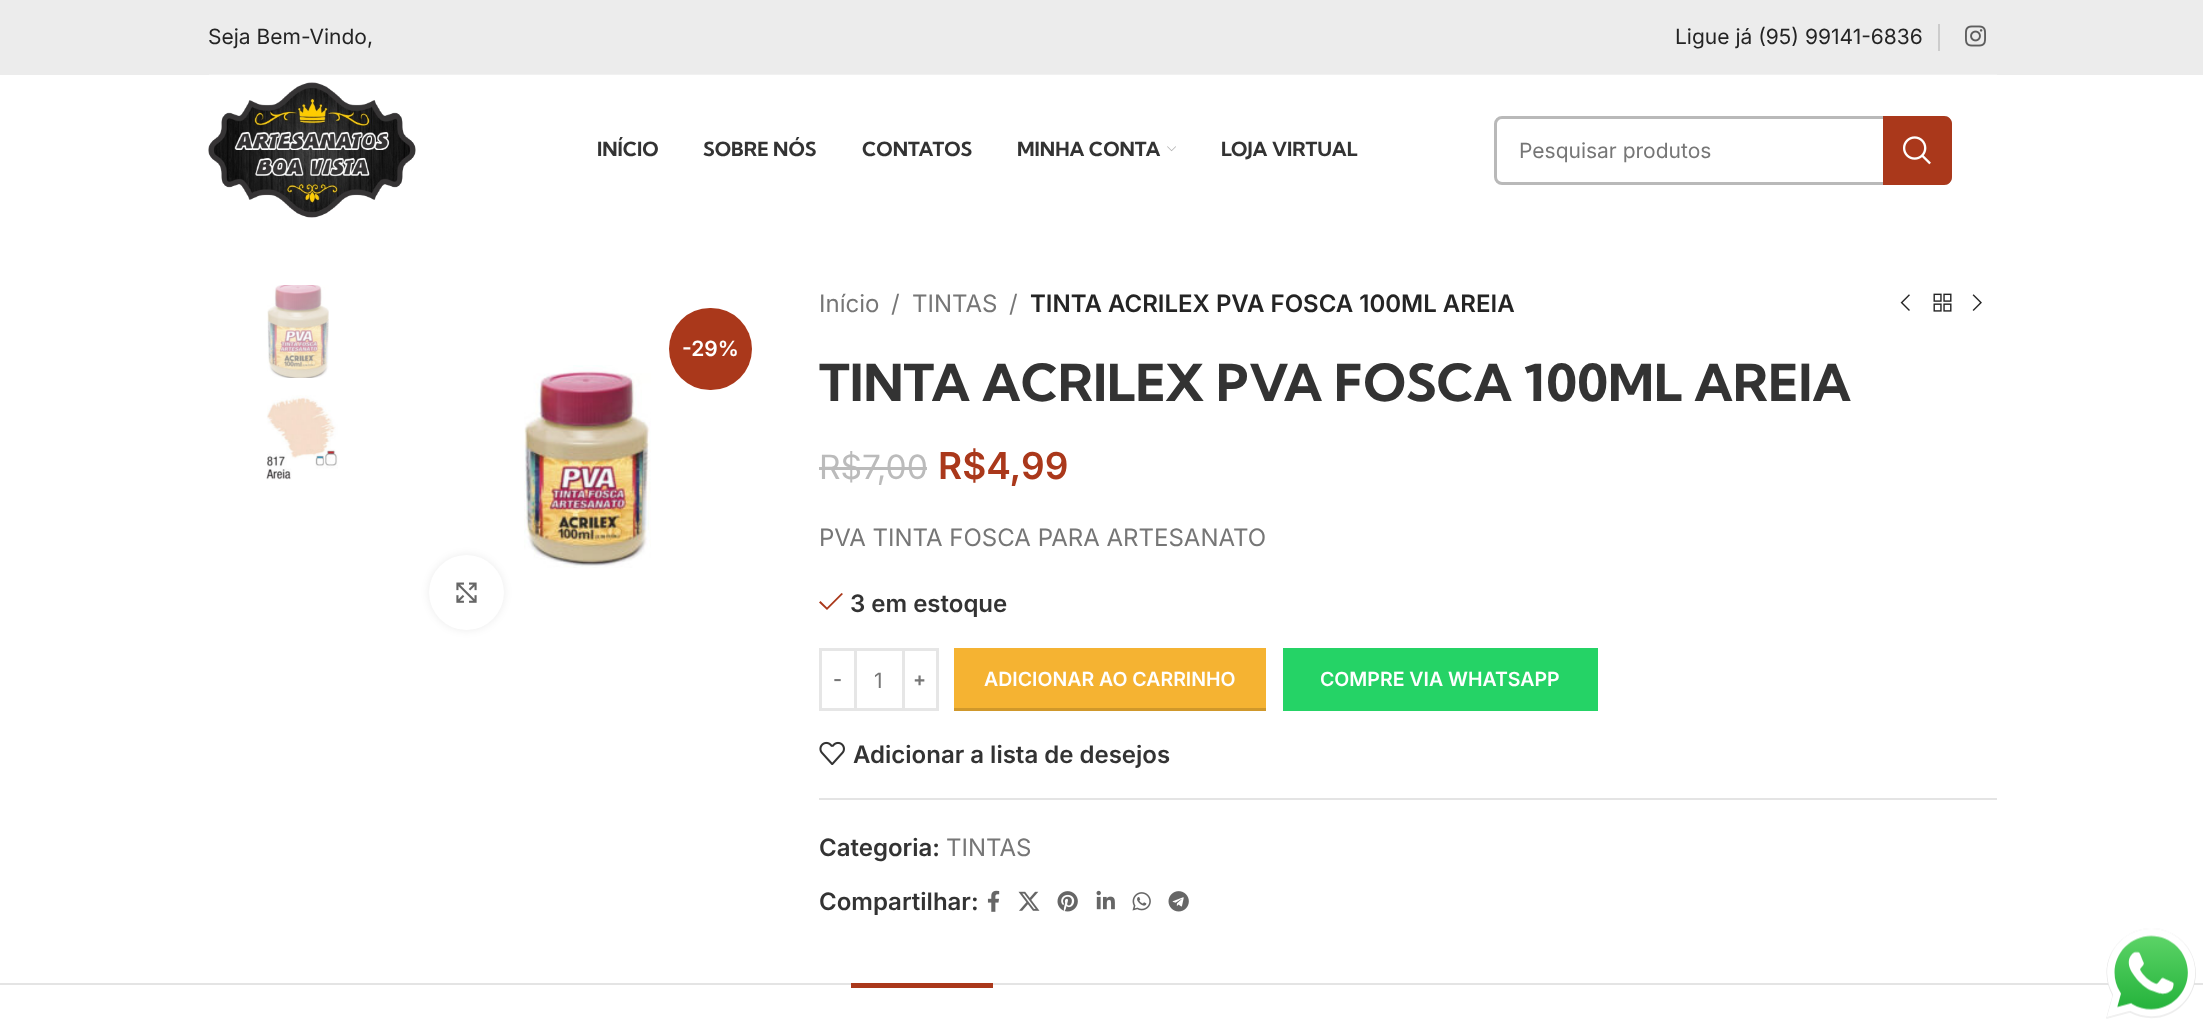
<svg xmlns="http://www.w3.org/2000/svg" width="2203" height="1026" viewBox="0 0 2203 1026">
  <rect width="100%" height="100%" fill="#fff"/>
  <path d="M0 0h2203v75H0z" fill="#ececec"/>
  <path d="M209 74h1788v1H209z" fill="#f1f1f1"/>
  <path d="M1938 24h2v27H1938z" fill="#ccc"/>
  <image x="1965" y="25" width="21" height="22" href="img/1.png"/>
  <image x="208" y="82" width="208" height="136" href="img/2.png"/>
  <image x="1167" y="146" width="9" height="6" href="img/3.png"/>
  <rect x="1495.5" y="117.5" width="455" height="66" rx="6.5" fill="none" stroke="#b9b9b9" stroke-width="3"/>
  <path d="M1883 116H1944C1948.5 116 1952 119.5 1952 124V177C1952 181.5 1948.5 185 1944 185H1883Z" fill="#aa381b"/>
  <image x="1903" y="136" width="28" height="29" href="img/4.png"/>
  <image x="267" y="285" width="62" height="93" href="img/5.png"/>
  <image x="266" y="395" width="72" height="85" href="img/6.png"/>
  <rect x="669" y="308" width="83" height="82" rx="41" fill="#aa381b"/>
  <image x="524" y="365" width="127" height="203" href="img/7.png"/>
  <rect x="429" y="555" width="75" height="75" rx="37.5" fill="#00000014" filter="blur(4px)"/>
  <circle cx="466.5" cy="592.5" r="37.5" fill="#fff"/>
  <image x="456" y="582" width="21" height="21" href="img/8.png"/>
  <image x="1900" y="294" width="10" height="17" href="img/9.png"/>
  <image x="1933" y="293" width="19" height="19" href="img/10.png"/>
  <image x="1972" y="294" width="10" height="17" href="img/11.png"/>
  <path d="M819 467h108v3H819z" fill="#bbb"/>
  <path d="M843 594L841.5 593L827 607.5L820.5 601L819 602.5L827 610Z" fill="#aa381b"/>
  <path d="M820.5 649.5h35v60H820.5z" fill="none" stroke="#e6e6e6" stroke-width="3"/>
  <path d="M857 648h45v3H857z" fill="#e6e6e6"/>
  <path d="M857 708h45v3H857z" fill="#e6e6e6"/>
  <path d="M903.5 649.5h34v60H903.5z" fill="none" stroke="#e6e6e6" stroke-width="3"/>
  <path d="M954 648h312v60H954z" fill="#f5b332"/>
  <path d="M954 708h312v3H954z" fill="#d0982b"/>
  <path d="M1283 648h315v63H1283z" fill="#25d366"/>
  <image x="819" y="741" width="26" height="24" href="img/12.png"/>
  <path d="M819 798h1178v2H819z" fill="#e4e4e4"/>
  <image x="987" y="890" width="13" height="22" href="img/13.png"/>
  <image x="1018" y="891" width="22" height="20" href="img/14.png"/>
  <image x="1057" y="891" width="21" height="21" href="img/15.png"/>
  <image x="1096" y="890" width="19" height="20" href="img/16.png"/>
  <image x="1132" y="892" width="19" height="19" href="img/17.png"/>
  <image x="1168" y="891" width="21" height="21" href="img/18.png"/>
  <path d="M0 983h2203v2H0z" fill="#e4e4e4"/>
  <path d="M851 983h142v5H851z" fill="#aa381b"/>
  <image x="2106" y="928" width="90" height="91" href="img/19.png"/>
  <g font-family="Inter" font-size="21" fill="#242424">
    <text x="208" y="44">Seja Bem-Vindo,</text>
    <text x="1675" y="44">Ligue já (95) 99141-6836</text>
  </g>
  <g font-family="Kumbh Sans" font-size="19.5" font-weight="bold" fill="#333">
    <text x="597" y="156">INÍCIO</text>
    <text x="703" y="156">SOBRE NÓS</text>
    <text x="862" y="156">CONTATOS</text>
    <text x="1017" y="156">MINHA CONTA</text>
    <text x="1221" y="156">LOJA VIRTUAL</text>
  </g>
  <text x="1519" y="158" font-family="Inter" font-size="21" fill="#767676">Pesquisar produtos</text>
  <text x="682" y="356" font-family="Inter" font-size="21" font-weight="600" fill="#fff">-29%</text>
  <g font-family="Inter" font-size="24" fill="#767676">
    <text x="819" y="312">Início</text>
    <text x="891" y="312">/</text>
    <text x="912" y="312">TINTAS</text>
    <text x="1009" y="312">/</text>
  </g>
  <text x="1030" y="312" font-family="Inter" font-size="24" font-weight="600" fill="#242424">TINTA ACRILEX PVA FOSCA 100ML AREIA</text>
  <text x="819" y="401" font-family="Kumbh Sans" font-size="51" font-weight="bold" fill="#333">TINTA ACRILEX PVA FOSCA 100ML AREIA</text>
  <text x="819" y="479" font-family="Inter" font-size="33.5" fill="#bbb">R$7,00</text>
  <text x="938" y="479" font-family="Inter" font-size="37" font-weight="600" fill="#aa381b">R$4,99</text>
  <text x="819" y="546" font-family="Inter" font-size="24" fill="#767676">PVA TINTA FOSCA PARA ARTESANATO</text>
  <text x="850" y="612" font-family="Inter" font-size="24" font-weight="600" fill="#333">3 em estoque</text>
  <text x="833" y="686" font-family="Inter" font-size="19.5" font-weight="600" fill="#767676">-</text>
  <text x="874" y="688" font-family="Inter" font-size="21" fill="#767676">1</text>
  <text x="913" y="686" font-family="Inter" font-size="19.5" font-weight="600" fill="#767676">+</text>
  <g font-family="Inter" font-size="19.5" font-weight="600" fill="#fff">
    <text x="984" y="686">ADICIONAR AO CARRINHO</text>
    <text x="1320" y="686">COMPRE VIA WHATSAPP</text>
  </g>
  <g font-family="Inter" font-size="24" font-weight="600" fill="#333">
    <text x="853" y="763">Adicionar a lista de desejos</text>
    <text x="819" y="856">Categoria:</text>
  </g>
  <text x="946" y="856" font-family="Inter" font-size="24" fill="#767676">TINTAS</text>
  <text x="819" y="910" font-family="Inter" font-size="24" font-weight="600" fill="#333">Compartilhar:</text>
</svg>
